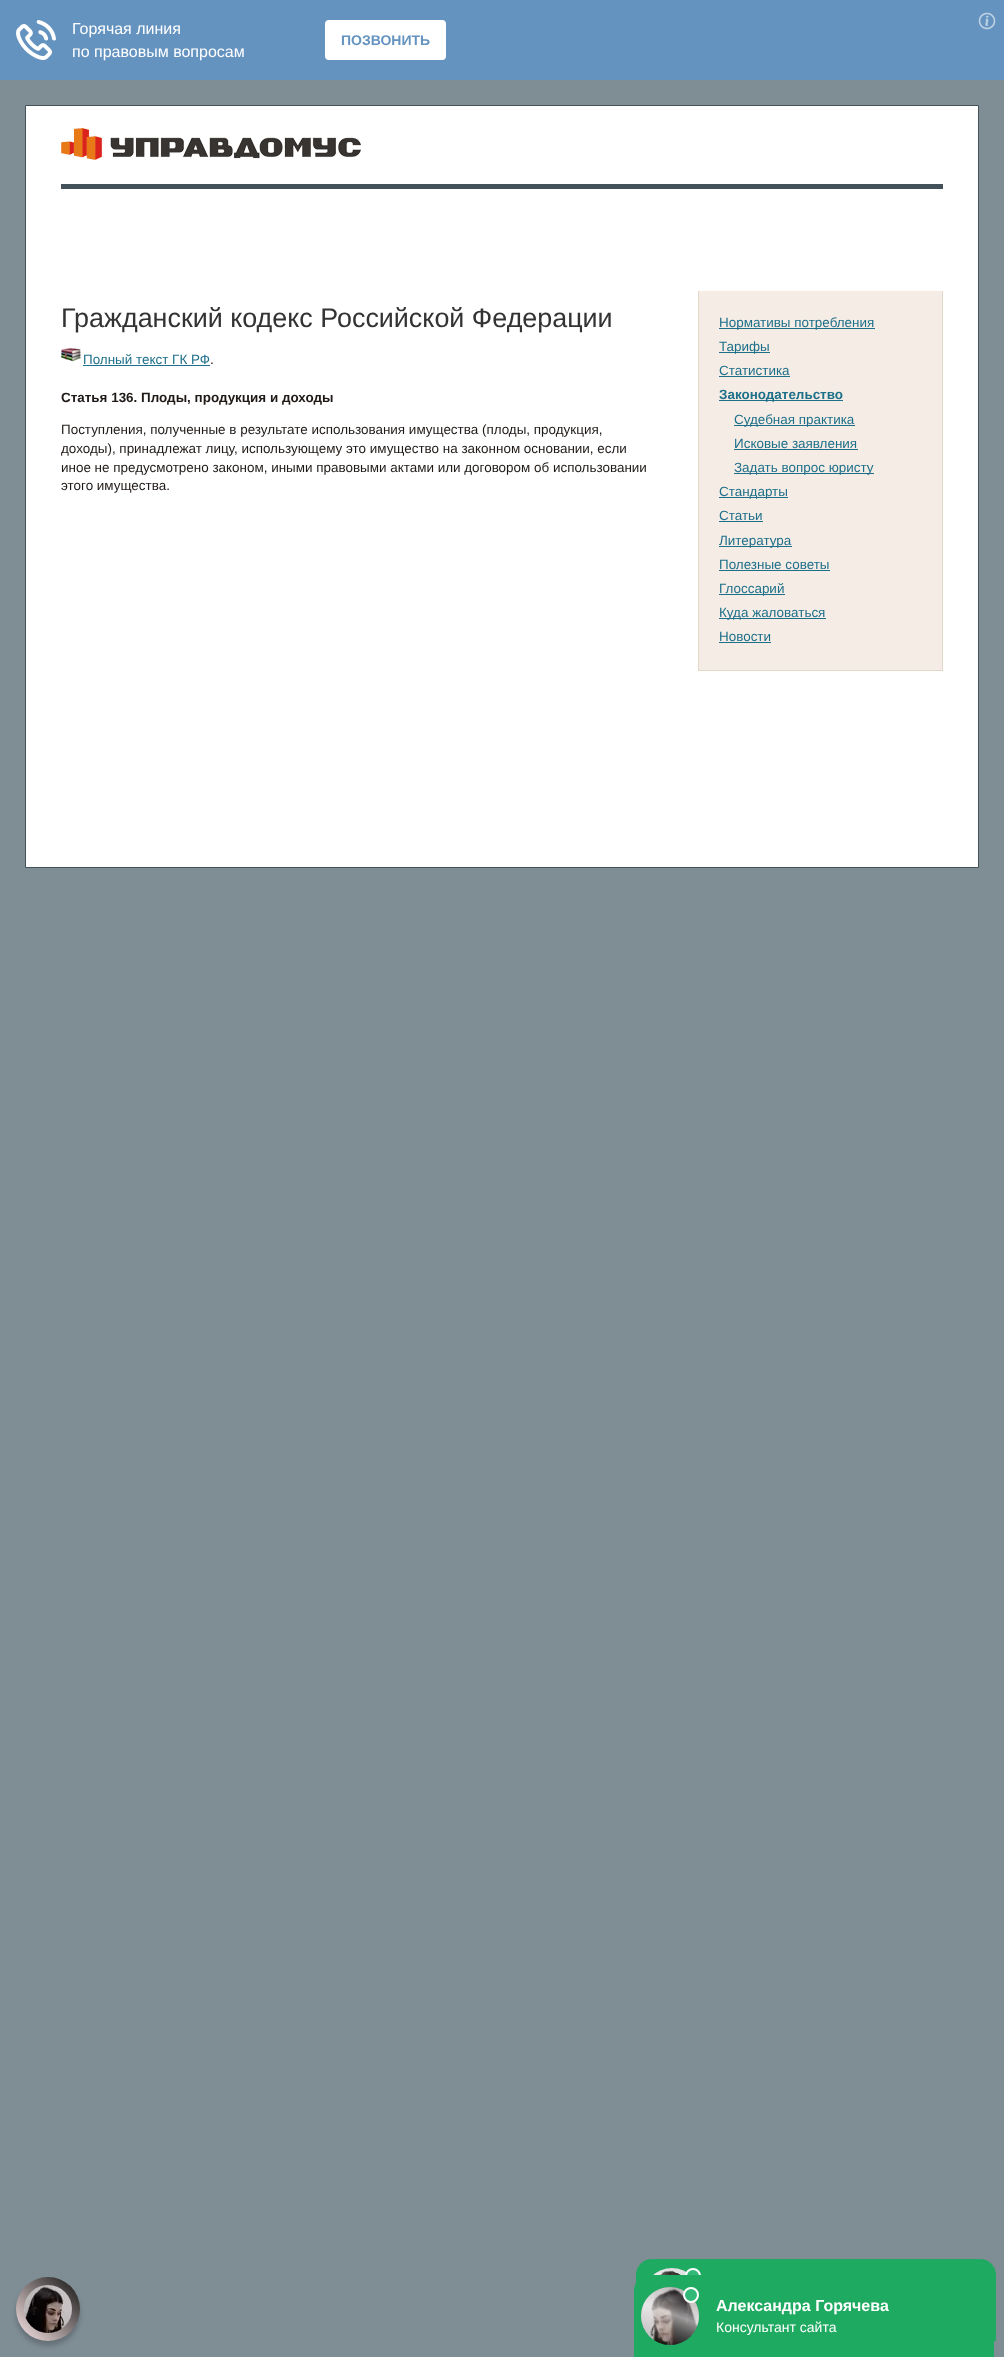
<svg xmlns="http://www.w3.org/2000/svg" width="1004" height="2357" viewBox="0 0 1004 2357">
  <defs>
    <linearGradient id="g1" gradientUnits="userSpaceOnUse" x1="682" y1="2273" x2="662" y2="2328"><stop offset="0" stop-color="#fff" stop-opacity="0"/><stop offset="0.4" stop-color="#fff" stop-opacity="0.6"/><stop offset="0.6" stop-color="#fff" stop-opacity="0.36"/><stop offset="1" stop-color="#fff" stop-opacity="0"/></linearGradient>
    <linearGradient id="g2" gradientUnits="userSpaceOnUse" x1="80" y1="2277" x2="16" y2="2341"><stop offset="0" stop-color="#101010"/><stop offset="1" stop-color="#ffeaeb"/></linearGradient>
    <linearGradient id="g3" gradientUnits="userSpaceOnUse" x1="680" y1="2292" x2="660" y2="2347"><stop offset="0" stop-color="#fff" stop-opacity="0"/><stop offset="0.4" stop-color="#fff" stop-opacity="0.6"/><stop offset="0.6" stop-color="#fff" stop-opacity="0.36"/><stop offset="1" stop-color="#fff" stop-opacity="0"/></linearGradient>
  </defs>
  <rect width="100%" height="100%" fill="#7f8d95"/>
  <path d="M0 0h1004v80H0z" fill="#6493c0"/>
  <image x="978" y="12" width="18" height="18" href="img/1.png"/>
  <image x="16" y="20" width="40" height="40" href="img/2.png"/>
  <rect x="325" y="20" width="121" height="40" rx="4" fill="#fff"/>
  <path d="M25.5 105.5h953v762H25.5z" fill="#fff" stroke="#43525a"/>
  <path d="M61 184h882v5H61z" fill="#43525a"/>
  <image x="61" y="128" width="300" height="32" href="img/3.png"/>
  <image x="61" y="348" width="20" height="14" href="img/4.png"/>
  <path d="M83 365h127v1H83z" fill="#1e6f8a"/>
  <path d="M699 291h243v379H699z" fill="#f5ede5"/>
  <path d="M942 291h1v380H942z" fill="#e4d7ca"/>
  <path d="M698 670h245v1H698z" fill="#e4d7ca"/>
  <path d="M698 291h1v380H698z" fill="#e4d7ca"/>
  <path d="M719 328h156v1H719z" fill="#1e6f8a"/>
  <path d="M719 352h51v1H719z" fill="#1e6f8a"/>
  <path d="M719 376h71v1H719z" fill="#1e6f8a"/>
  <path d="M719 400h124v1H719z" fill="#1e6f8a"/>
  <path d="M734 425h121v1H734z" fill="#1e6f8a"/>
  <path d="M734 449h124v1H734z" fill="#1e6f8a"/>
  <path d="M734 473h140v1H734z" fill="#1e6f8a"/>
  <path d="M719 497h69v1H719z" fill="#1e6f8a"/>
  <path d="M719 521h44v1H719z" fill="#1e6f8a"/>
  <path d="M719 546h73v1H719z" fill="#1e6f8a"/>
  <path d="M719 570h111v1H719z" fill="#1e6f8a"/>
  <path d="M719 594h66v1H719z" fill="#1e6f8a"/>
  <path d="M719 618h107v1H719z" fill="#1e6f8a"/>
  <path d="M719 642h52v1H719z" fill="#1e6f8a"/>
  <path d="M652 2259H980C989 2259 996 2266 996 2275V2341H636V2275C636 2266 643 2259 652 2259Z" fill="#1eaa61"/>
  <circle cx="672" cy="2297" r="29" fill="#178049"/>
  <image x="653" y="2268" width="34" height="7" href="img/5.png"/>
  <path d="M669 2268L693 2277C698 2282 701 2289 701 2297C701 2313 688 2326 672 2326C656 2326 643 2313 643 2297C643 2282 654 2270 669 2268Z" fill="url(#g1)"/>
  <circle cx="693" cy="2276" r="7" fill="#31b978" stroke="#fff" stroke-width="2"/>
  <rect x="16" y="2282" width="64" height="64" rx="32" fill="#00000033" filter="blur(2.5px)"/>
  <circle cx="48" cy="2309" r="32" fill="url(#g2)"/>
  <image x="24" y="2285" width="48" height="48" href="img/6.png"/>
  <path d="M650 2275H978C987 2275 994 2282 994 2291V2357H634V2291C634 2282 641 2275 650 2275Z" fill="#1eaa61"/>
  <circle cx="670" cy="2316" r="29" fill="#178049"/>
  <image x="641" y="2287" width="58" height="58" href="img/7.png"/>
  <path d="M667 2287L691 2296C696 2301 699 2308 699 2316C699 2332 686 2345 670 2345C654 2345 641 2332 641 2316C641 2301 652 2289 667 2287Z" fill="url(#g3)"/>
  <circle cx="691" cy="2295" r="7" fill="#31b978" stroke="#fff" stroke-width="2"/>
  <g font-family="Liberation Sans" font-size="16" fill="#fff">
    <text x="72" y="34">Горячая линия</text>
    <text x="72" y="57">по правовым вопросам</text>
  </g>
  <text x="341" y="45" font-family="Liberation Sans" font-size="14" font-weight="bold" fill="#6493c0">ПОЗВОНИТЬ</text>
  <text x="61" y="327" font-family="Liberation Sans" font-size="26.9" fill="#333">Гражданский кодекс Российской Федерации</text>
  <text x="83" y="364" font-family="Liberation Sans" font-size="13.45" fill="#1e6f8a">Полный текст ГК РФ</text>
  <text x="210" y="364" font-family="Liberation Sans" font-size="13.45" fill="#1f1a17">.</text>
  <text x="61" y="402" font-family="Liberation Sans" font-size="13.45" font-weight="bold" fill="#1f1a17">Статья 136. Плоды, продукция и доходы</text>
  <g font-family="Liberation Sans" font-size="13.45" fill="#1f1a17">
    <text x="61" y="434">Поступления, полученные в результате использования имущества (плоды, продукция,</text>
    <text x="61" y="453">доходы), принадлежат лицу, использующему это имущество на законном основании, если</text>
    <text x="61" y="472">иное не предусмотрено законом, иными правовыми актами или договором об использовании</text>
    <text x="61" y="490">этого имущества.</text>
  </g>
  <g font-family="Liberation Sans" font-size="13.45" fill="#1e6f8a">
    <text x="719" y="327">Нормативы потребления</text>
    <text x="719" y="351">Тарифы</text>
    <text x="719" y="375">Статистика</text>
  </g>
  <text x="719" y="399" font-family="Liberation Sans" font-size="13.45" font-weight="bold" fill="#1e6f8a">Законодательство</text>
  <g font-family="Liberation Sans" font-size="13.45" fill="#1e6f8a">
    <text x="734" y="424">Судебная практика</text>
    <text x="734" y="448">Исковые заявления</text>
    <text x="734" y="472">Задать вопрос юристу</text>
    <text x="719" y="496">Стандарты</text>
    <text x="719" y="520">Статьи</text>
    <text x="719" y="545">Литература</text>
    <text x="719" y="569">Полезные советы</text>
    <text x="719" y="593">Глоссарий</text>
    <text x="719" y="617">Куда жаловаться</text>
    <text x="719" y="641">Новости</text>
  </g>
  <text x="716" y="2311" font-family="Liberation Sans" font-size="16" font-weight="bold" fill="#fff">Александра Горячева</text>
  <text x="716" y="2332" font-family="Liberation Sans" font-size="14" fill="#fff">Консультант сайта</text>
</svg>
